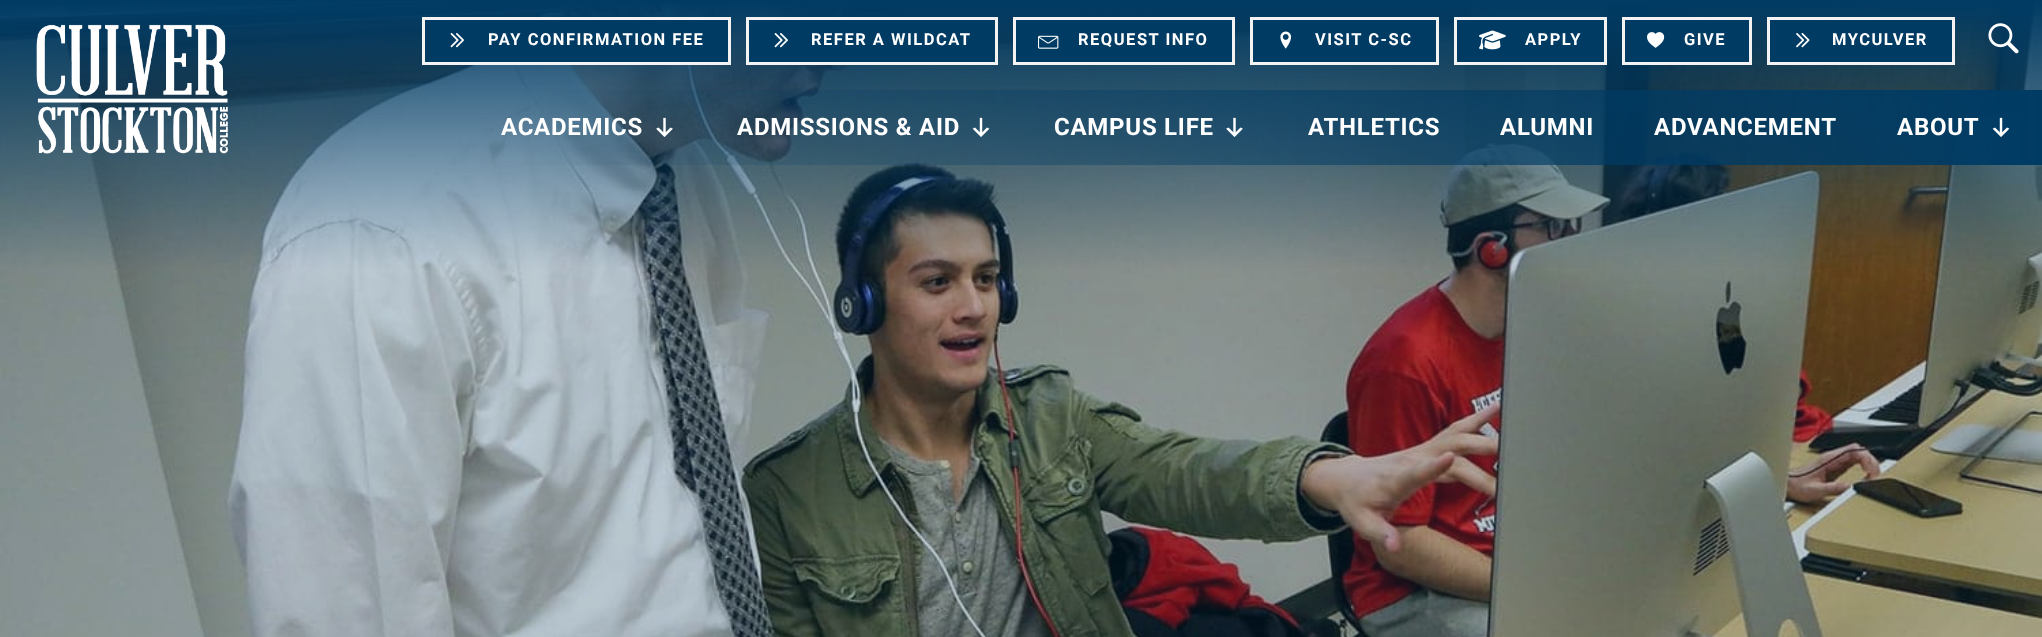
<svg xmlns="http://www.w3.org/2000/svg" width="2042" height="637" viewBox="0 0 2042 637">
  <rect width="100%" height="100%" fill="#fff"/>
  <image x="0" y="0" width="2042" height="637" href="img/1.png"/>
  <path d="M423.5 18.5h306v45H423.5z" fill="#003b64" stroke="#f3f3f3" stroke-width="3"/>
  <image x="450" y="33" width="14" height="15" href="img/2.png"/>
  <path d="M747.5 18.5h249v45H747.5z" fill="#003b64" stroke="#f3f3f3" stroke-width="3"/>
  <image x="774" y="33" width="14" height="15" href="img/2.png"/>
  <path d="M1014.5 18.5h219v45H1014.5z" fill="#003b64" stroke="#f3f3f3" stroke-width="3"/>
  <image x="1038" y="35" width="21" height="14" href="img/3.png"/>
  <path d="M1251.5 18.5h186v45H1251.5z" fill="#003b64" stroke="#f3f3f3" stroke-width="3"/>
  <image x="1280" y="31" width="12" height="18" href="img/4.png"/>
  <path d="M1455.5 18.5h150v45H1455.5z" fill="#003b64" stroke="#f3f3f3" stroke-width="3"/>
  <image x="1479" y="30" width="27" height="20" href="img/5.png"/>
  <path d="M1623.5 18.5h127v45H1623.5z" fill="#003b64" stroke="#f3f3f3" stroke-width="3"/>
  <image x="1647" y="32" width="18" height="16" href="img/6.png"/>
  <path d="M1768.5 18.5h185v45H1768.5z" fill="#003b64" stroke="#f3f3f3" stroke-width="3"/>
  <image x="1796" y="33" width="14" height="15" href="img/7.png"/>
  <image x="1988" y="23" width="31" height="31" href="img/8.png"/>
  <image x="36" y="24" width="192" height="130" href="img/9.png"/>
  <image x="656" y="117" width="17" height="20" href="img/10.png"/>
  <image x="972" y="117" width="18" height="20" href="img/11.png"/>
  <image x="1226" y="117" width="17" height="20" href="img/12.png"/>
  <image x="1992" y="117" width="18" height="20" href="img/13.png"/>
  <g font-family="Roboto" font-size="16.5" font-weight="bold" letter-spacing="1.5" fill="#fff">
    <text x="488" y="45">PAY CONFIRMATION FEE</text>
    <text x="811" y="45">REFER A WILDCAT</text>
    <text x="1078" y="45">REQUEST INFO</text>
    <text x="1315" y="45">VISIT C-SC</text>
    <text x="1525" y="45">APPLY</text>
    <text x="1684" y="45">GIVE</text>
    <text x="1832" y="45">MYCULVER</text>
  </g>
  <g font-family="Roboto" font-size="24" font-weight="bold" letter-spacing="0.75" fill="#fff">
    <text x="501" y="135">ACADEMICS</text>
    <text x="737" y="135">ADMISSIONS &amp; AID</text>
    <text x="1054" y="135">CAMPUS LIFE</text>
    <text x="1308" y="135">ATHLETICS</text>
    <text x="1500" y="135">ALUMNI</text>
    <text x="1654" y="135">ADVANCEMENT</text>
    <text x="1897" y="135">ABOUT</text>
  </g>
</svg>
